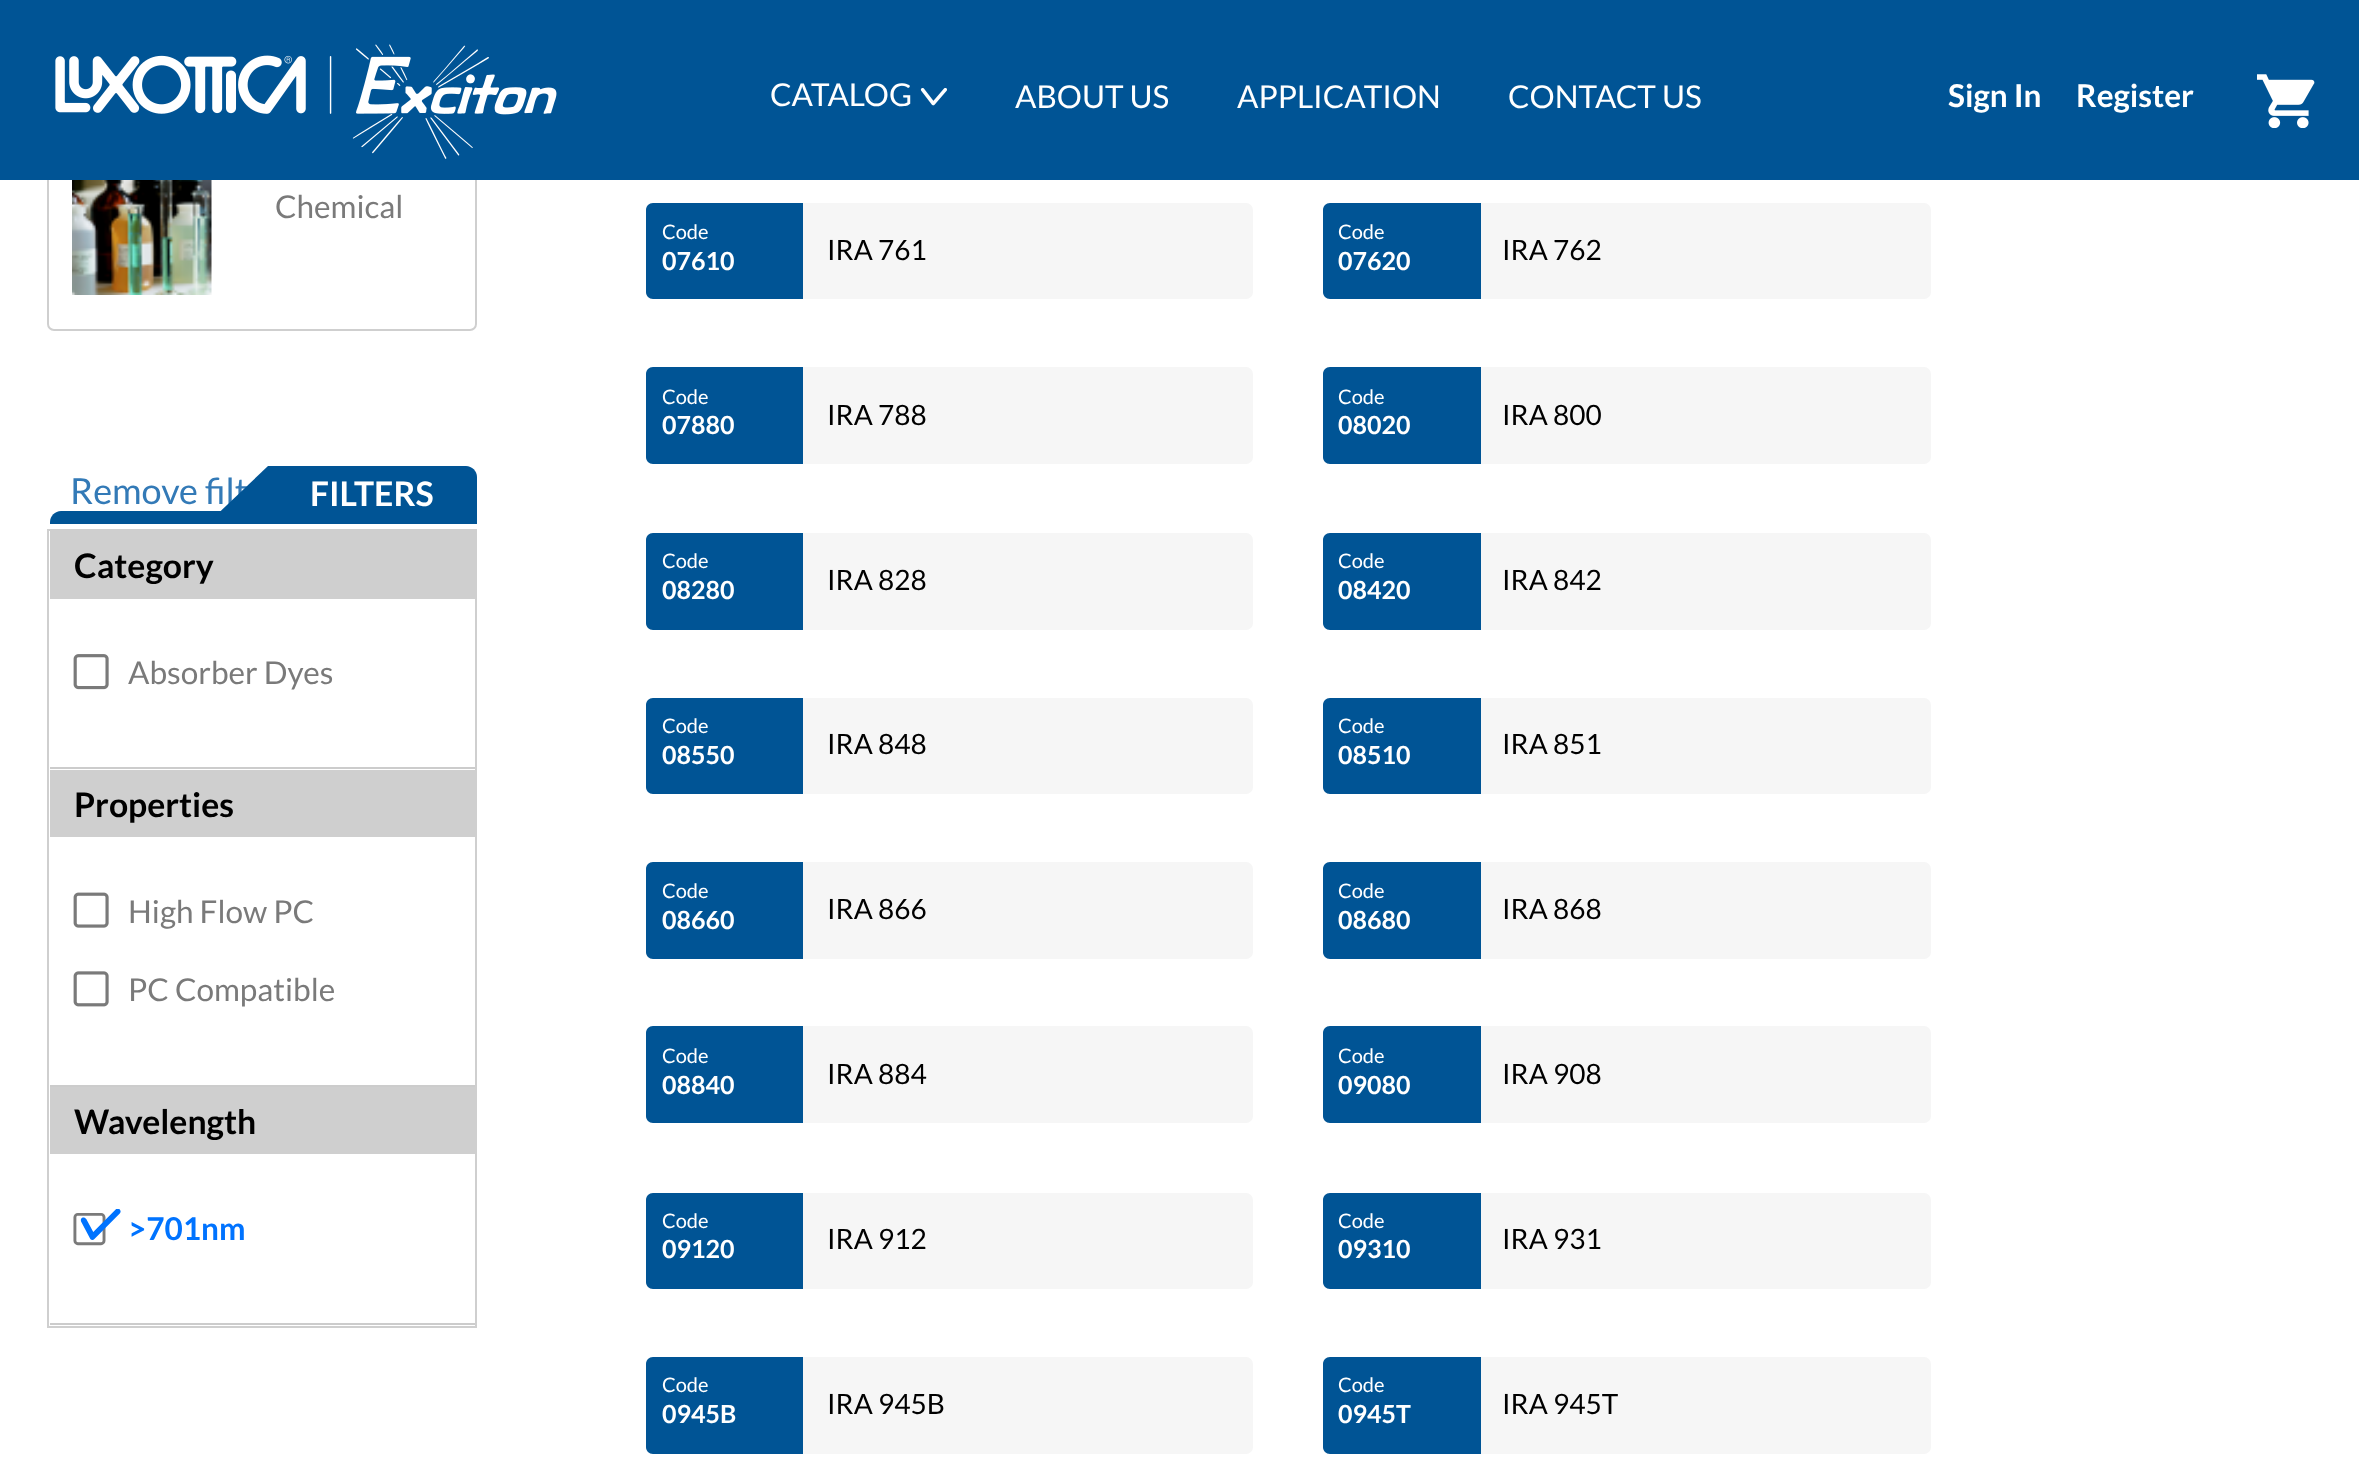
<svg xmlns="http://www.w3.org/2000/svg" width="2359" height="1464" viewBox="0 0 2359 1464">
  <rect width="100%" height="100%" fill="#fff"/>
  <rect x="48" y="-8" width="428" height="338" rx="6" fill="none" stroke="#cfcfcf" stroke-width="2"/>
  <path d="M0 0h2359v180H0z" fill="#005495"/>
  <image x="55" y="44" width="502" height="115" href="img/1.png"/>
  <image x="920" y="88" width="27" height="18" href="img/2.png"/>
  <image x="2257" y="74" width="58" height="54" href="img/3.png"/>
  <image x="72" y="180" width="140" height="115" href="img/4.png"/>
  <path d="M61 511H464C470 511 475 516 475 522V524H50V522C50 516 55 511 61 511Z" fill="#005495"/>
  <path d="M268 466H466C472 466 477 471 477 477V524H268Z" fill="#005495"/>
  <path d="M48 530h428v797H48z" fill="none" stroke="#cfcfcf" stroke-width="2"/>
  <path d="M50 767h425v2H50z" fill="#ccc"/>
  <path d="M50 531h425v68H50z" fill="#cfcfcf"/>
  <image x="73" y="654" width="36" height="36" href="img/5.png"/>
  <path d="M50 1085h425v2H50z" fill="#ccc"/>
  <path d="M50 770h425v67H50z" fill="#cfcfcf"/>
  <image x="73" y="892" width="36" height="36" href="img/6.png"/>
  <image x="73" y="971" width="36" height="36" href="img/7.png"/>
  <path d="M50 1323h425v2H50z" fill="#ccc"/>
  <path d="M50 1087h425v67H50z" fill="#cfcfcf"/>
  <image x="73" y="1209" width="48" height="37" href="img/8.png"/>
  <rect x="646" y="203" width="607" height="96" rx="7" fill="#f6f6f6"/>
  <path d="M653 203H803V299H653C649 299 646 296 646 292V210C646 206 649 203 653 203Z" fill="#005495"/>
  <rect x="1323" y="203" width="608" height="96" rx="7" fill="#f6f6f6"/>
  <path d="M1330 203H1481V299H1330C1326 299 1323 296 1323 292V210C1323 206 1326 203 1330 203Z" fill="#005495"/>
  <rect x="646" y="367" width="607" height="97" rx="7" fill="#f6f6f6"/>
  <path d="M653 367H803V464H653C649 464 646 461 646 457V374C646 370 649 367 653 367Z" fill="#005495"/>
  <rect x="1323" y="367" width="608" height="97" rx="7" fill="#f6f6f6"/>
  <path d="M1330 367H1481V464H1330C1326 464 1323 461 1323 457V374C1323 370 1326 367 1330 367Z" fill="#005495"/>
  <rect x="646" y="533" width="607" height="97" rx="7" fill="#f6f6f6"/>
  <path d="M653 533H803V630H653C649 630 646 627 646 623V540C646 536 649 533 653 533Z" fill="#005495"/>
  <rect x="1323" y="533" width="608" height="97" rx="7" fill="#f6f6f6"/>
  <path d="M1330 533H1481V630H1330C1326 630 1323 627 1323 623V540C1323 536 1326 533 1330 533Z" fill="#005495"/>
  <rect x="646" y="698" width="607" height="96" rx="7" fill="#f6f6f6"/>
  <path d="M653 698H803V794H653C649 794 646 791 646 787V705C646 701 649 698 653 698Z" fill="#005495"/>
  <rect x="1323" y="698" width="608" height="96" rx="7" fill="#f6f6f6"/>
  <path d="M1330 698H1481V794H1330C1326 794 1323 791 1323 787V705C1323 701 1326 698 1330 698Z" fill="#005495"/>
  <rect x="646" y="862" width="607" height="97" rx="7" fill="#f6f6f6"/>
  <path d="M653 862H803V959H653C649 959 646 956 646 952V869C646 865 649 862 653 862Z" fill="#005495"/>
  <rect x="1323" y="862" width="608" height="97" rx="7" fill="#f6f6f6"/>
  <path d="M1330 862H1481V959H1330C1326 959 1323 956 1323 952V869C1323 865 1326 862 1330 862Z" fill="#005495"/>
  <rect x="646" y="1026" width="607" height="97" rx="7" fill="#f6f6f6"/>
  <path d="M653 1026H803V1123H653C649 1123 646 1120 646 1116V1033C646 1029 649 1026 653 1026Z" fill="#005495"/>
  <rect x="1323" y="1026" width="608" height="97" rx="7" fill="#f6f6f6"/>
  <path d="M1330 1026H1481V1123H1330C1326 1123 1323 1120 1323 1116V1033C1323 1029 1326 1026 1330 1026Z" fill="#005495"/>
  <rect x="646" y="1193" width="607" height="96" rx="7" fill="#f6f6f6"/>
  <path d="M653 1193H803V1289H653C649 1289 646 1286 646 1282V1200C646 1196 649 1193 653 1193Z" fill="#005495"/>
  <rect x="1323" y="1193" width="608" height="96" rx="7" fill="#f6f6f6"/>
  <path d="M1330 1193H1481V1289H1330C1326 1289 1323 1286 1323 1282V1200C1323 1196 1326 1193 1330 1193Z" fill="#005495"/>
  <rect x="646" y="1357" width="607" height="97" rx="7" fill="#f6f6f6"/>
  <path d="M653 1357H803V1454H653C649 1454 646 1451 646 1447V1364C646 1360 649 1357 653 1357Z" fill="#005495"/>
  <rect x="1323" y="1357" width="608" height="97" rx="7" fill="#f6f6f6"/>
  <path d="M1330 1357H1481V1454H1330C1326 1454 1323 1451 1323 1447V1364C1323 1360 1326 1357 1330 1357Z" fill="#005495"/>
  <g font-family="Lato" font-size="31.5" fill="#fff">
    <text x="770" y="106">CATALOG</text>
    <text x="1015" y="108">ABOUT US</text>
    <text x="1237" y="108">APPLICATION</text>
    <text x="1508" y="108">CONTACT US</text>
  </g>
  <g font-family="Lato" font-size="31.5" font-weight="bold" fill="#fff">
    <text x="1948" y="107">Sign In</text>
    <text x="2076" y="107">Register</text>
  </g>
  <text x="275" y="218" font-family="Lato" font-size="31.5" fill="#7a7a7a">Chemical</text>
  <text x="70" y="504" font-family="Lato" font-size="36" fill="#337ab7">Remove filt</text>
  <path d="M268 524H207L268 466Z" fill="#005495"/>
  <text x="310" y="506" font-family="Lato" font-size="33.75" font-weight="bold" fill="#fff">FILTERS</text>
  <text x="74" y="578" font-family="Lato" font-size="33.75" font-weight="bold" fill="#000">Category</text>
  <text x="128" y="684" font-family="Lato" font-size="31.5" fill="#7a7a7a">Absorber Dyes</text>
  <text x="74" y="817" font-family="Lato" font-size="33.75" font-weight="bold" fill="#000">Properties</text>
  <g font-family="Lato" font-size="31.5" fill="#7a7a7a">
    <text x="128" y="923">High Flow PC</text>
    <text x="128" y="1001">PC Compatible</text>
  </g>
  <text x="74" y="1134" font-family="Lato" font-size="33.75" font-weight="bold" fill="#000">Wavelength</text>
  <text x="128" y="1240" font-family="Lato" font-size="31.5" font-weight="bold" fill="#0073ff">&gt;701nm</text>
  <text x="662" y="239" font-family="Lato" font-size="20" fill="#fff">Code</text>
  <text x="662" y="270" font-family="Lato" font-size="25" font-weight="bold" fill="#fff">07610</text>
  <text x="827" y="260" font-family="Lato" font-size="28" fill="#000">IRA 761</text>
  <text x="1338" y="239" font-family="Lato" font-size="20" fill="#fff">Code</text>
  <text x="1338" y="270" font-family="Lato" font-size="25" font-weight="bold" fill="#fff">07620</text>
  <text x="1502" y="260" font-family="Lato" font-size="28" fill="#000">IRA 762</text>
  <text x="662" y="404" font-family="Lato" font-size="20" fill="#fff">Code</text>
  <text x="662" y="434" font-family="Lato" font-size="25" font-weight="bold" fill="#fff">07880</text>
  <text x="827" y="425" font-family="Lato" font-size="28" fill="#000">IRA 788</text>
  <text x="1338" y="404" font-family="Lato" font-size="20" fill="#fff">Code</text>
  <text x="1338" y="434" font-family="Lato" font-size="25" font-weight="bold" fill="#fff">08020</text>
  <text x="1502" y="425" font-family="Lato" font-size="28" fill="#000">IRA 800</text>
  <text x="662" y="568" font-family="Lato" font-size="20" fill="#fff">Code</text>
  <text x="662" y="599" font-family="Lato" font-size="25" font-weight="bold" fill="#fff">08280</text>
  <text x="827" y="590" font-family="Lato" font-size="28" fill="#000">IRA 828</text>
  <text x="1338" y="568" font-family="Lato" font-size="20" fill="#fff">Code</text>
  <text x="1338" y="599" font-family="Lato" font-size="25" font-weight="bold" fill="#fff">08420</text>
  <text x="1502" y="590" font-family="Lato" font-size="28" fill="#000">IRA 842</text>
  <text x="662" y="733" font-family="Lato" font-size="20" fill="#fff">Code</text>
  <text x="662" y="764" font-family="Lato" font-size="25" font-weight="bold" fill="#fff">08550</text>
  <text x="827" y="754" font-family="Lato" font-size="28" fill="#000">IRA 848</text>
  <text x="1338" y="733" font-family="Lato" font-size="20" fill="#fff">Code</text>
  <text x="1338" y="764" font-family="Lato" font-size="25" font-weight="bold" fill="#fff">08510</text>
  <text x="1502" y="754" font-family="Lato" font-size="28" fill="#000">IRA 851</text>
  <text x="662" y="898" font-family="Lato" font-size="20" fill="#fff">Code</text>
  <text x="662" y="929" font-family="Lato" font-size="25" font-weight="bold" fill="#fff">08660</text>
  <text x="827" y="919" font-family="Lato" font-size="28" fill="#000">IRA 866</text>
  <text x="1338" y="898" font-family="Lato" font-size="20" fill="#fff">Code</text>
  <text x="1338" y="929" font-family="Lato" font-size="25" font-weight="bold" fill="#fff">08680</text>
  <text x="1502" y="919" font-family="Lato" font-size="28" fill="#000">IRA 868</text>
  <text x="662" y="1063" font-family="Lato" font-size="20" fill="#fff">Code</text>
  <text x="662" y="1094" font-family="Lato" font-size="25" font-weight="bold" fill="#fff">08840</text>
  <text x="827" y="1084" font-family="Lato" font-size="28" fill="#000">IRA 884</text>
  <text x="1338" y="1063" font-family="Lato" font-size="20" fill="#fff">Code</text>
  <text x="1338" y="1094" font-family="Lato" font-size="25" font-weight="bold" fill="#fff">09080</text>
  <text x="1502" y="1084" font-family="Lato" font-size="28" fill="#000">IRA 908</text>
  <text x="662" y="1228" font-family="Lato" font-size="20" fill="#fff">Code</text>
  <text x="662" y="1258" font-family="Lato" font-size="25" font-weight="bold" fill="#fff">09120</text>
  <text x="827" y="1249" font-family="Lato" font-size="28" fill="#000">IRA 912</text>
  <text x="1338" y="1228" font-family="Lato" font-size="20" fill="#fff">Code</text>
  <text x="1338" y="1258" font-family="Lato" font-size="25" font-weight="bold" fill="#fff">09310</text>
  <text x="1502" y="1249" font-family="Lato" font-size="28" fill="#000">IRA 931</text>
  <text x="662" y="1392" font-family="Lato" font-size="20" fill="#fff">Code</text>
  <text x="662" y="1423" font-family="Lato" font-size="25" font-weight="bold" fill="#fff">0945B</text>
  <text x="827" y="1414" font-family="Lato" font-size="28" fill="#000">IRA 945B</text>
  <text x="1338" y="1392" font-family="Lato" font-size="20" fill="#fff">Code</text>
  <text x="1338" y="1423" font-family="Lato" font-size="25" font-weight="bold" fill="#fff">0945T</text>
  <text x="1502" y="1414" font-family="Lato" font-size="28" fill="#000">IRA 945T</text>
</svg>
